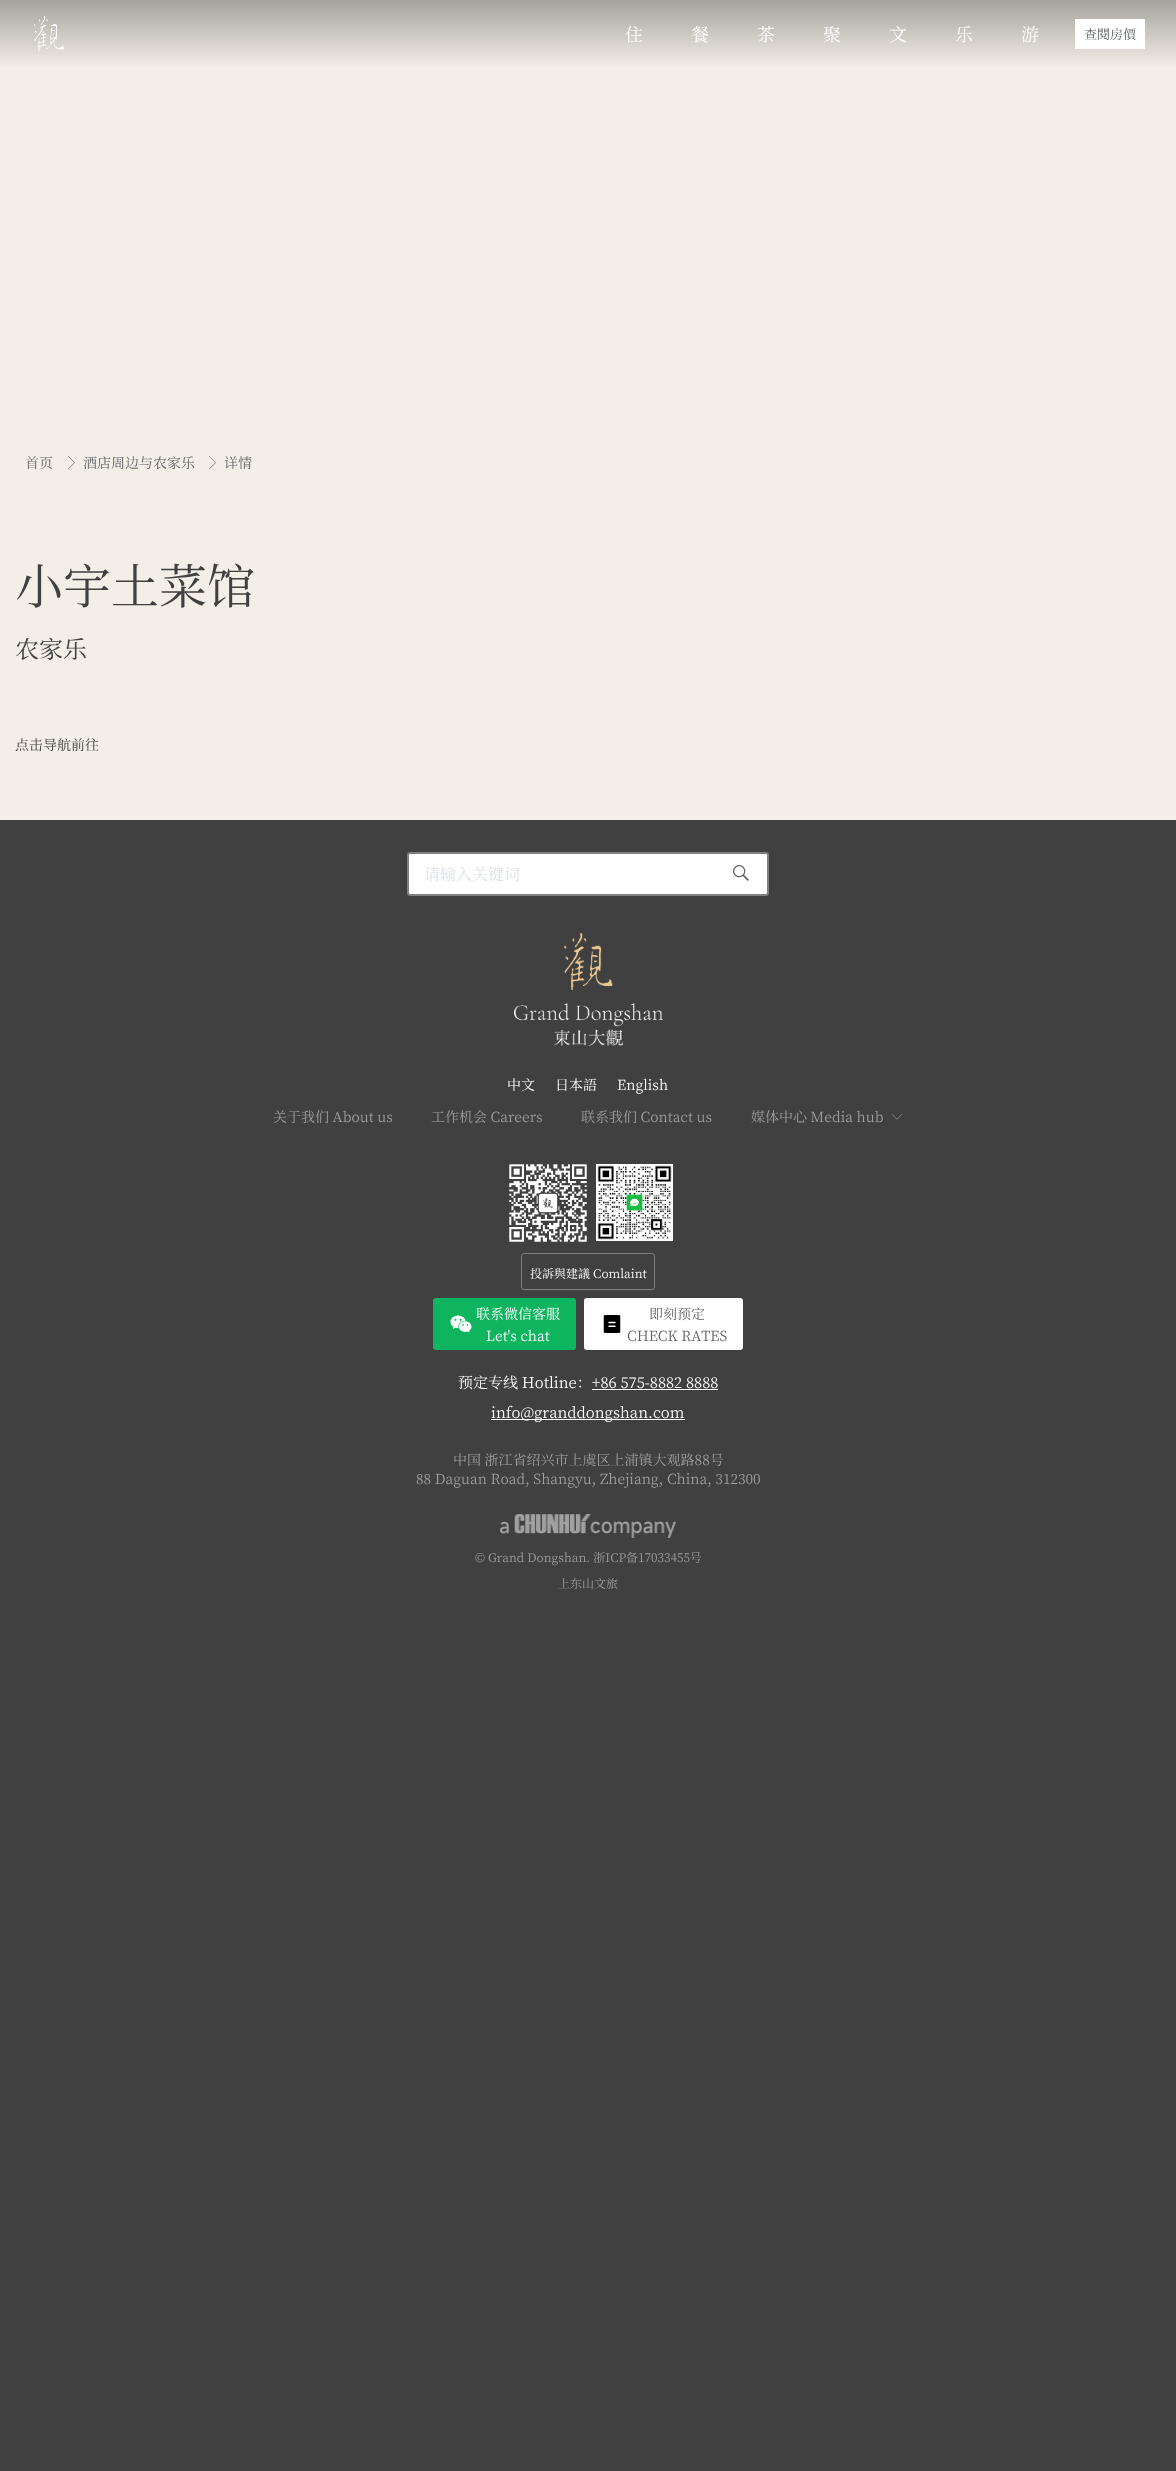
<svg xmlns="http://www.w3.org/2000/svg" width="1176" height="2471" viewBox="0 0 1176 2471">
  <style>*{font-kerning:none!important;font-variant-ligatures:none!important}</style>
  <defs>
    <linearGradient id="g1" gradientUnits="userSpaceOnUse" x1="588" y1="0" x2="588" y2="68"><stop offset="0" stop-color="#a5a29d"/><stop offset="1" stop-color="#f3eee7"/></linearGradient>
  </defs>
  <rect width="100%" height="100%" fill="#404040"/>
  <path d="M0 0h1176v68H0z" fill="url(#g1)"/>
  <image x="34" y="16" width="30" height="36" href="img/1.png"/>
  <path d="M1075 19h70v30H1075z" fill="#fff"/>
  <path d="M0 68h1176v752H0z" fill="#f3eee7"/>
  <image x="68" y="456" width="7" height="14" href="img/2.png"/>
  <image x="209" y="456" width="7" height="14" href="img/2.png"/>
  <rect x="408" y="853" width="360" height="42" rx="2" fill="none" stroke="#808080" stroke-width="2"/>
  <rect x="409" y="854" width="358" height="40" rx="1" fill="#fff"/>
  <image x="733" y="865" width="16" height="16" href="img/3.png"/>
  <image x="514" y="933" width="149" height="113" href="img/4.png"/>
  <image x="891" y="1114" width="12" height="6" href="img/5.png"/>
  <image x="509" y="1164" width="78" height="78" href="img/6.png"/>
  <image x="596" y="1164" width="77" height="77" href="img/7.png"/>
  <rect x="521.5" y="1253.5" width="133" height="36" rx="2.5" fill="none" stroke="#808080"/>
  <rect x="433" y="1298" width="143" height="52" rx="3" fill="#0eb55e"/>
  <image x="450" y="1315" width="22" height="18" href="img/8.png"/>
  <rect x="584" y="1298" width="159" height="52" rx="3" fill="#fff"/>
  <image x="603" y="1315" width="18" height="18" href="img/9.png"/>
  <path d="M592 1389h126v1H592z" fill="#fff"/>
  <path d="M491 1419h194v1H491z" fill="#fff"/>
  <image x="500" y="1514" width="176" height="24" href="img/10.png"/>
  <g font-family="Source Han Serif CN" font-size="18" fill="#fff">
    <text x="625" y="41">住</text>
    <text x="691" y="41">餐</text>
    <text x="757" y="41">茶</text>
    <text x="823" y="41">聚</text>
    <text x="889" y="41">文</text>
    <text x="955" y="41">乐</text>
    <text x="1021" y="41">游</text>
  </g>
  <text x="1084" y="39" font-family="Source Han Serif CN" font-size="13" fill="#606266">查閱房價</text>
  <g font-family="Source Han Serif CN" font-size="14" fill="#606266">
    <text x="25" y="468">首页</text>
    <text x="83" y="468">酒店周边与农家乐</text>
    <text x="224" y="468">详情</text>
  </g>
  <text x="15" y="604" font-family="Source Han Serif CN" font-size="48" fill="#404040">小宇土菜馆</text>
  <text x="15" y="658" font-family="Source Han Serif CN" font-size="24" fill="#404040">农家乐</text>
  <text x="15" y="750" font-family="Source Han Serif CN" font-size="14" fill="#404040">点击导航前往</text>
  <text x="424" y="880" font-family="Source Han Serif CN" font-size="16" fill="#dcdfe6">请输入关键词</text>
  <g font-family="Source Han Serif CN" font-size="14" fill="#fff">
    <text x="507" y="1090">中文</text>
    <text x="555" y="1090">日本語</text>
    <text x="617" y="1090">English</text>
  </g>
  <g font-family="Source Han Serif CN" font-size="14" fill="#9f9f9f">
    <text x="273" y="1122">关于我们 About us</text>
    <text x="431" y="1122">工作机会 Careers</text>
    <text x="581" y="1122">联系我们 Contact us</text>
    <text x="751" y="1122">媒体中心 Media hub</text>
  </g>
  <text x="530" y="1278" font-family="Source Han Serif CN" font-size="12" fill="#fff">投訴與建議 Comlaint</text>
  <g font-family="Source Han Serif CN" font-size="14" fill="#fff">
    <text x="476" y="1319">联系微信客服</text>
    <text x="486" y="1341">Let's chat</text>
  </g>
  <g font-family="Source Han Serif CN" font-size="14" fill="#606266">
    <text x="649" y="1319">即刻预定</text>
    <text x="627" y="1341">CHECK RATES</text>
  </g>
  <g font-family="Source Han Serif CN" font-size="15" fill="#fff">
    <text x="458" y="1388">预定专线 Hotline：+86 575-8882 8888</text>
    <text x="491" y="1418">info@granddongshan.com</text>
  </g>
  <g font-family="Source Han Serif CN" font-size="14" fill="#9f9f9f">
    <text x="453" y="1465">中国 浙江省绍兴市上虞区上浦镇大观路88号</text>
    <text x="416" y="1484">88 Daguan Road, Shangyu, Zhejiang, China, 312300</text>
  </g>
  <g font-family="Source Han Serif CN" font-size="12" fill="#9f9f9f">
    <text x="475" y="1562">© Grand Dongshan. 浙ICP备17033455号</text>
    <text x="558" y="1588">上东山文旅</text>
  </g>
</svg>
